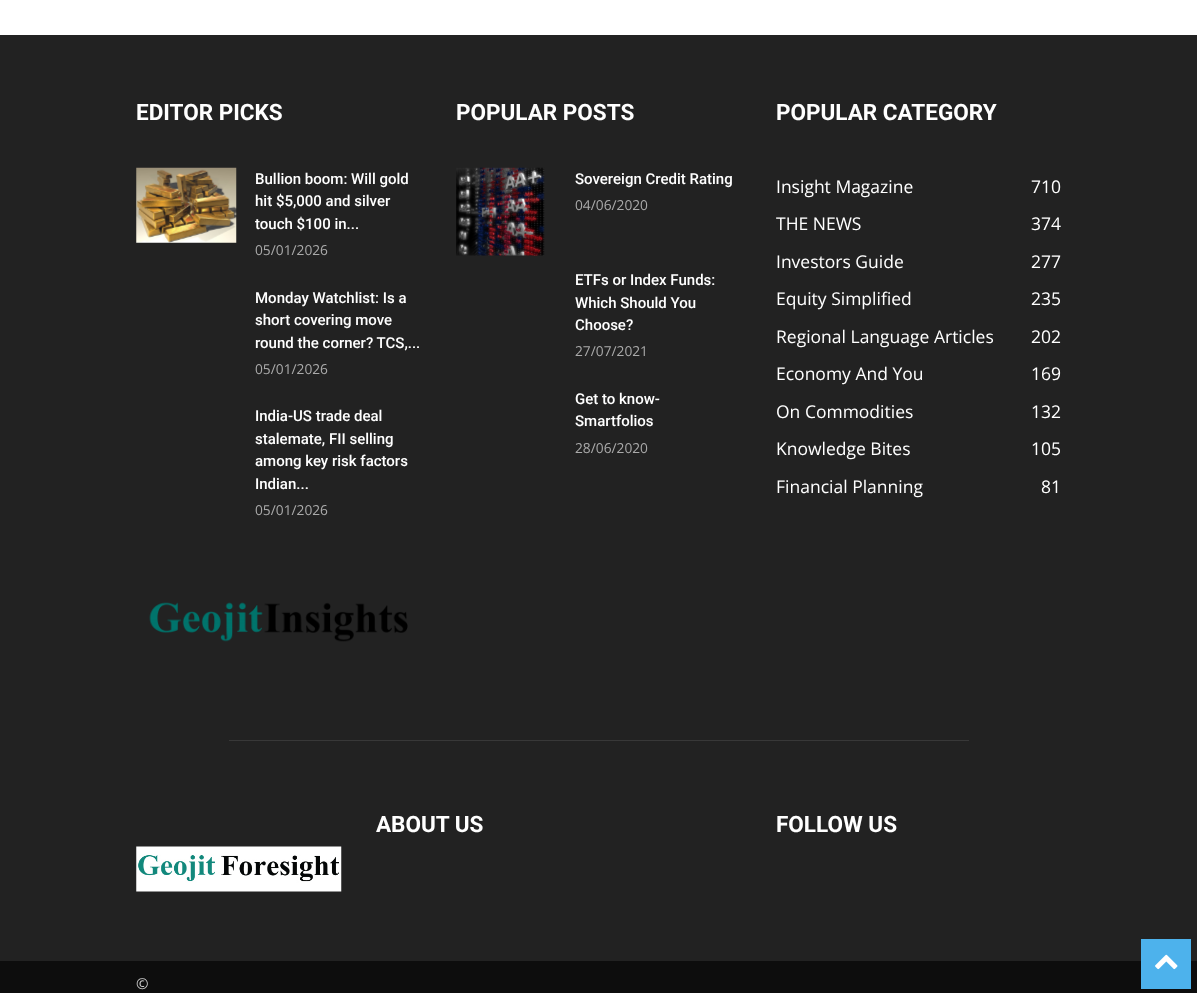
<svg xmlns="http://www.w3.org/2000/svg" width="1197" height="993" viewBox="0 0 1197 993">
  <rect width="100%" height="100%" fill="#fff"/>
  <path d="M0 35h1197v926H0z" fill="#222"/>
  <image x="136" y="167" width="101" height="76" href="img/1.png"/>
  <image x="149" y="602" width="259" height="40" href="img/2.png"/>
  <image x="456" y="167" width="89" height="89" href="img/3.png"/>
  <path d="M229 740h740v1H229z" fill="#383838"/>
  <image x="136" y="846" width="206" height="46" href="img/4.png"/>
  <path d="M0 961h1197v32H0z" fill="#0d0d0d"/>
  <path d="M1141 939h50v50H1141z" fill="#4db2ec"/>
  <image x="1155" y="954" width="23" height="16" href="img/5.png"/>
  <text x="136" y="120" font-family="Roboto" font-size="22.5" font-weight="bold" fill="#fff">EDITOR PICKS</text>
  <g font-family="Roboto" font-size="15" font-weight="500" fill="#fff">
    <text x="255" y="184">Bullion boom: Will gold</text>
    <text x="255" y="206">hit $5,000 and silver</text>
    <text x="255" y="229">touch $100 in...</text>
  </g>
  <text x="255" y="255" font-family="Open Sans" font-size="13.75" fill="#aaa">05/01/2026</text>
  <g font-family="Roboto" font-size="15" font-weight="500" fill="#fff">
    <text x="255" y="303">Monday Watchlist: Is a</text>
    <text x="255" y="325">short covering move</text>
    <text x="255" y="348">round the corner? TCS,...</text>
  </g>
  <text x="255" y="374" font-family="Open Sans" font-size="13.75" fill="#aaa">05/01/2026</text>
  <g font-family="Roboto" font-size="15" font-weight="500" fill="#fff">
    <text x="255" y="421">India-US trade deal</text>
    <text x="255" y="444">stalemate, FII selling</text>
    <text x="255" y="466">among key risk factors</text>
    <text x="255" y="489">Indian...</text>
  </g>
  <text x="255" y="515" font-family="Open Sans" font-size="13.75" fill="#aaa">05/01/2026</text>
  <text x="456" y="120" font-family="Roboto" font-size="22.5" font-weight="bold" fill="#fff">POPULAR POSTS</text>
  <text x="575" y="184" font-family="Roboto" font-size="15" font-weight="500" fill="#fff">Sovereign Credit Rating</text>
  <text x="575" y="210" font-family="Open Sans" font-size="13.75" fill="#aaa">04/06/2020</text>
  <g font-family="Roboto" font-size="15" font-weight="500" fill="#fff">
    <text x="575" y="285">ETFs or Index Funds:</text>
    <text x="575" y="308">Which Should You</text>
    <text x="575" y="330">Choose?</text>
  </g>
  <text x="575" y="356" font-family="Open Sans" font-size="13.75" fill="#aaa">27/07/2021</text>
  <g font-family="Roboto" font-size="15" font-weight="500" fill="#fff">
    <text x="575" y="404">Get to know-</text>
    <text x="575" y="426">Smartfolios</text>
  </g>
  <text x="575" y="453" font-family="Open Sans" font-size="13.75" fill="#aaa">28/06/2020</text>
  <text x="776" y="120" font-family="Roboto" font-size="22.5" font-weight="bold" fill="#fff">POPULAR CATEGORY</text>
  <g font-family="Open Sans" font-size="17.5" fill="#fff">
    <text x="776" y="193">Insight Magazine</text>
    <text x="1031" y="193">710</text>
    <text x="776" y="230">THE NEWS</text>
    <text x="1031" y="230">374</text>
    <text x="776" y="268">Investors Guide</text>
    <text x="1031" y="268">277</text>
    <text x="776" y="305">Equity Simplified</text>
    <text x="1031" y="305">235</text>
    <text x="776" y="343">Regional Language Articles</text>
    <text x="1031" y="343">202</text>
    <text x="776" y="380">Economy And You</text>
    <text x="1031" y="380">169</text>
    <text x="776" y="418">On Commodities</text>
    <text x="1031" y="418">132</text>
    <text x="776" y="455">Knowledge Bites</text>
    <text x="1031" y="455">105</text>
    <text x="776" y="493">Financial Planning</text>
    <text x="1041" y="493">81</text>
  </g>
  <g font-family="Roboto" font-size="22.5" font-weight="bold" fill="#fff">
    <text x="376" y="832">ABOUT US</text>
    <text x="776" y="832">FOLLOW US</text>
  </g>
  <text x="136" y="989" font-family="Open Sans" font-size="15" fill="#ccc">©</text>
</svg>
